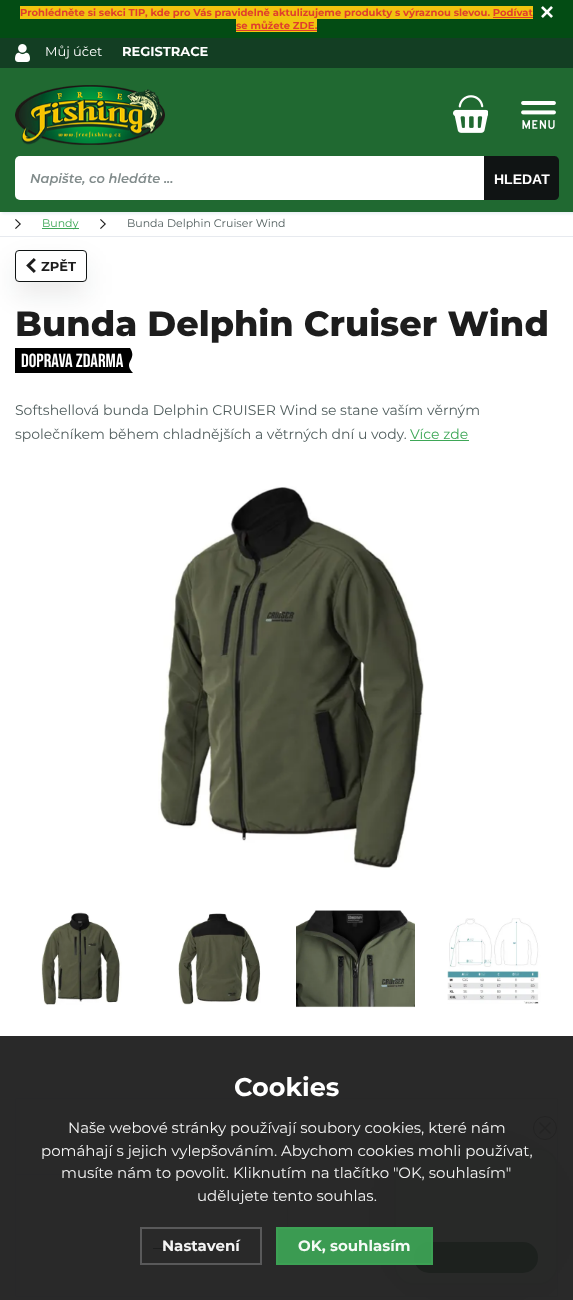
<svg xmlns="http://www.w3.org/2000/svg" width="573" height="1300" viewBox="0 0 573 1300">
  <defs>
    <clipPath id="clip1"><path d="M126 348h7v25H126z"/></clipPath>
  </defs>
  <rect width="100%" height="100%" fill="#fff"/>
  <path d="M2 40h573v174H2z" fill="#004a8114" filter="blur(1px)"/>
  <path d="M0 0h573v38H0z" fill="#034c14"/>
  <path d="M20 6h513v13H20z" fill="#f1c40f"/>
  <path d="M493 17h40v1H493z" fill="#e03e2d"/>
  <path d="M236 19h81v13H236z" fill="#f1c40f"/>
  <path d="M236 30h81v1H236z" fill="#e03e2d"/>
  <image x="541" y="6" width="12" height="12" href="img/1.png"/>
  <path d="M0 68h573v144H0z" fill="#206931"/>
  <path d="M0 38h573v30H0z" fill="#133e23"/>
  <image x="15" y="44" width="15" height="18" href="img/2.png"/>
  <image x="15" y="85" width="150" height="60" href="img/3.png"/>
  <image x="453" y="95" width="35" height="38" href="img/4.png"/>
  <image x="521" y="101" width="35" height="28" href="img/5.png"/>
  <rect x="15" y="156" width="543" height="44" rx="5" fill="#fff"/>
  <path d="M484 156H554C557 156 559 158 559 161V195C559 198 557 200 554 200H484Z" fill="#101414"/>
  <path d="M0 236h573v1H0z" fill="#e7eaef"/>
  <image x="15" y="219" width="6" height="10" href="img/6.png"/>
  <path d="M42 228h37v1H42z" fill="#3ea757"/>
  <image x="100" y="219" width="6" height="10" href="img/6.png"/>
  <rect x="15" y="263" width="72" height="32" rx="4" fill="#10141417" filter="blur(13.5px)"/>
  <rect x="15.5" y="250.5" width="71" height="31" rx="3.5" fill="#fff" stroke="#101414"/>
  <image x="26" y="258" width="10" height="15" href="img/7.png"/>
  <path d="M15 348h111v25H15z" fill="#000"/>
  <g clip-path="url(#clip1)">
    <path d="M133 373H13V348H130C138 360 122 362 133 373Z" fill="#000" fill-rule="evenodd"/>
  </g>
  <path d="M410 440h59v1H410z" fill="#3ea757"/>
  <image x="158" y="486" width="266" height="384" href="img/8.png"/>
  <image x="41" y="912" width="81" height="93" href="img/9.png"/>
  <image x="178" y="913" width="83" height="92" href="img/10.png"/>
  <image x="296" y="910" width="119" height="98" href="img/11.png"/>
  <image x="447" y="918" width="94" height="86" href="img/12.png"/>
  <path d="M15.5 1098.5h542v198H15.5z" fill="none" stroke="#e7eaef"/>
  <path d="M16 1174h378v1H16z" fill="#e7eaef"/>
  <path d="M16 1175h541v121H16z" fill="#fcfcfc"/>
  <path d="M153 1248h29v1H153z" fill="#101414"/>
  <path d="M287 1205h1v61H287z" fill="#e0e0e0"/>
  <rect x="393" y="1147" width="168" height="141" rx="22" fill="#00000038" filter="blur(50px)"/>
  <rect x="394" y="1148" width="164" height="137" rx="20" fill="#e8fced"/>
  <rect x="395" y="1149" width="162" height="135" rx="19" fill="none" stroke="#2068311f" stroke-width="2"/>
  <circle cx="545" cy="1128" r="11.5" fill="none" stroke="#1c191780"/>
  <path d="M540 1133L550 1123M540 1123L550 1133" fill="none" stroke="#1c191780" stroke-width="1.5" stroke-linecap="round" stroke-linejoin="round"/>
  <rect x="414" y="1242" width="124" height="31" rx="15" fill="#206831"/>
  <path d="M0 1036h573v264H0z" fill="#1d1d1df2"/>
  <path d="M141 1228h120v36H141z" fill="none" stroke="#5c5c5df2" stroke-width="2"/>
  <path d="M277 1228h155v36H277z" fill="#3ca154f2" stroke="#3ca154" stroke-width="2"/>
  <g font-family="Montserrat" font-size="10" font-weight="bold" fill="#e03e2d">
    <text x="20" y="16">Prohlédněte si sekci TIP, kde pro Vás pravidelně aktulizujeme produkty s výraznou slevou. Podívat</text>
    <text x="236" y="29">se můžete ZDE.</text>
  </g>
  <text x="45" y="56" font-family="Montserrat" font-size="13" fill="#fff">Můj účet</text>
  <text x="122" y="56" font-family="Montserrat" font-size="13" font-weight="bold" fill="#fff">REGISTRACE</text>
  <text x="30" y="183" font-family="Montserrat" font-size="13" font-weight="100" font-style="italic" fill="#828c8c">Napište, co hledáte ...</text>
  <text x="494" y="184" font-family="Liberation Sans" font-size="14" font-weight="bold" fill="#fff">HLEDAT</text>
  <text x="42" y="227" font-family="Montserrat" font-size="11" fill="#3ea757">Bundy</text>
  <text x="127" y="227" font-family="Montserrat" font-size="11" fill="#515e5e">Bunda Delphin Cruiser Wind</text>
  <text x="41" y="271" font-family="Montserrat" font-size="13" font-weight="bold" fill="#1d1d1d">ZPĚT</text>
  <text x="15" y="336" font-family="Montserrat" font-size="35" font-weight="800" fill="#1d1d1d">Bunda Delphin Cruiser Wind</text>
  <text x="21" y="367" font-family="Bebas Neue" font-size="19" fill="#fff">DOPRAVA ZDARMA</text>
  <g font-family="Montserrat" font-size="14" fill="#515e5e">
    <text x="15" y="415">Softshellová bunda Delphin CRUISER Wind se stane vaším věrným</text>
    <text x="15" y="439">společníkem během chladnějších a větrných dní u vody.</text>
  </g>
  <text x="410" y="439" font-family="Montserrat" font-size="14" fill="#3ea757">Více zde</text>
  <text x="234" y="1096" font-family="Montserrat" font-size="25.5" font-weight="bold" fill="#fff">Cookies</text>
  <g font-family="Montserrat" font-size="15" fill="#f4f4f4">
    <text x="68" y="1133">Naše webové stránky používají soubory cookies, které nám</text>
    <text x="41" y="1156">pomáhají s jejich vylepšováním. Abychom cookies mohli používat,</text>
    <text x="61" y="1178">musíte nám to povolit. Kliknutím na tlačítko "OK, souhlasím"</text>
    <text x="197" y="1201">udělujete tento souhlas.</text>
  </g>
  <text x="162" y="1251" font-family="Montserrat" font-size="15" font-weight="bold" fill="#f4f4f4">Nastavení</text>
  <text x="298" y="1251" font-family="Montserrat" font-size="15" font-weight="bold" fill="#f5faf6">OK, souhlasím</text>
</svg>
